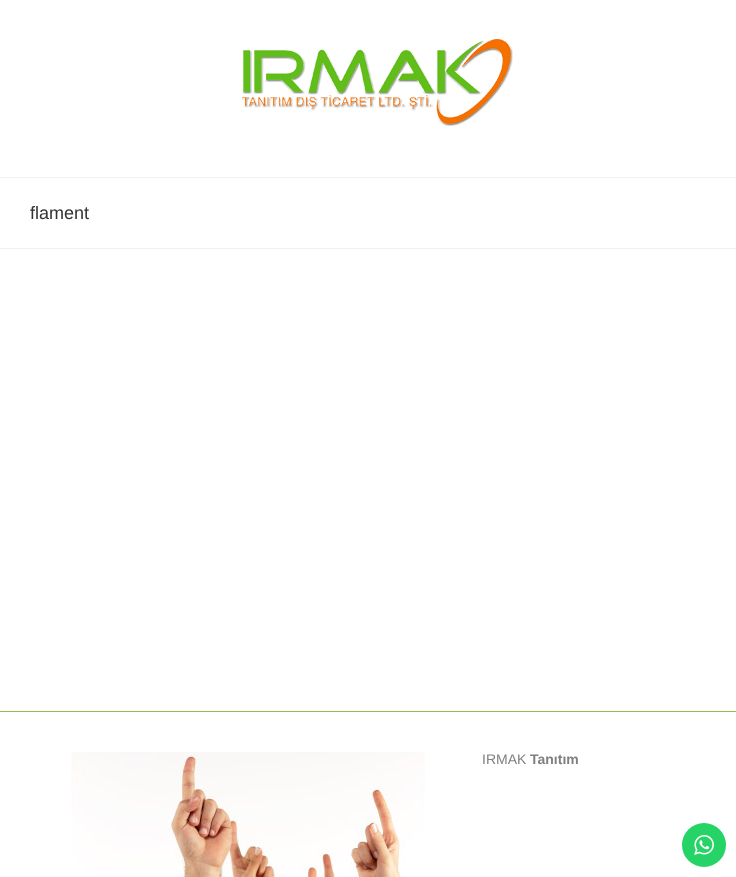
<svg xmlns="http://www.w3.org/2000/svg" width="736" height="877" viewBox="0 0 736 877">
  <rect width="100%" height="100%" fill="#fff"/>
  <image x="241" y="39" width="272" height="87" href="img/1.png"/>
  <path d="M0 177h736v1H0z" fill="#f2f2f2"/>
  <path d="M0 248h736v1H0z" fill="#f2f2f2"/>
  <path d="M0 711h736v1H0z" fill="#8bc34a"/>
  <image x="71" y="752" width="354" height="125" href="img/2.png"/>
  <circle cx="704" cy="845" r="22" fill="#25d366"/>
  <image x="694" y="835" width="20" height="20" href="img/3.png"/>
  <text x="30" y="219" font-family="Liberation Sans" font-size="18" fill="#333">flament</text>
  <text x="482" y="764" font-family="Liberation Sans" font-size="14" fill="#808080">IRMAK</text>
  <text x="530" y="764" font-family="Liberation Sans" font-size="14" font-weight="bold" fill="#808080">Tanıtım</text>
</svg>
